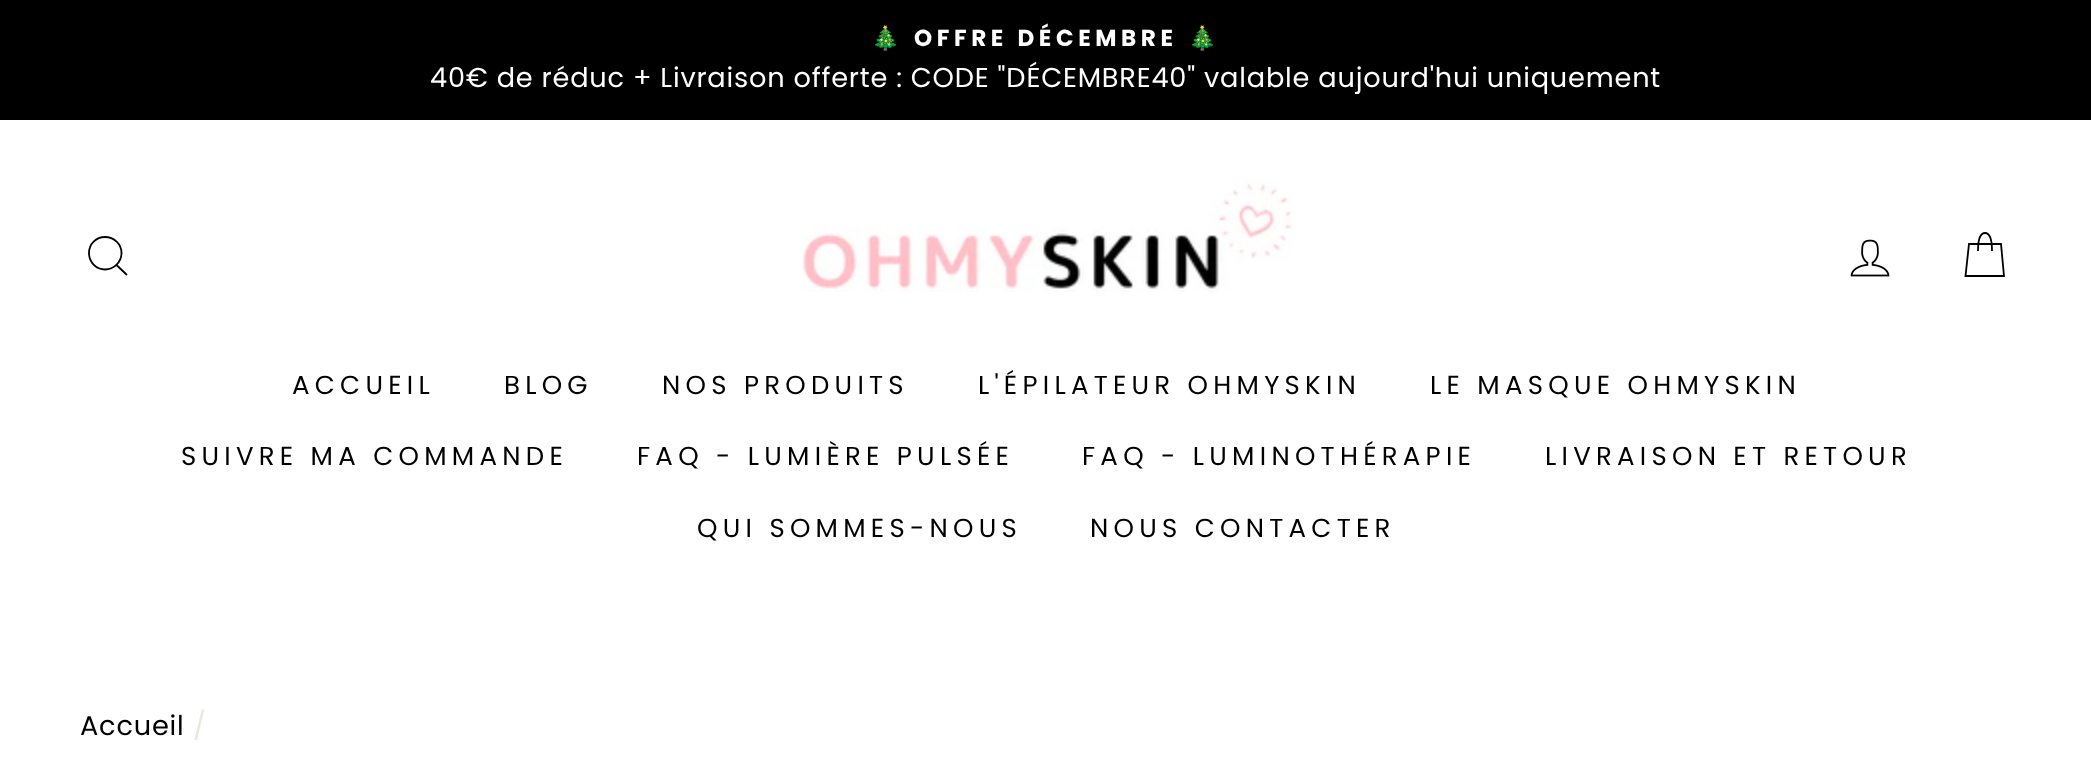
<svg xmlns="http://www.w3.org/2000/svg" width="2091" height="773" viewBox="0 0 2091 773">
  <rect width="100%" height="100%" fill="#fff"/>
  <path d="M0 0h2091v120H0z" fill="#000"/>
  <path d="M121.5 253C121.5 262 114 269.5 105 269.5C96 269.5 89 262 89 253C89 244 96 237 105 237C114 237 121.5 244 121.5 253ZM127 275L116.5 265" fill="none" stroke="#000" stroke-width="1.8"/>
  <image x="802" y="180" width="491" height="112" href="img/1.png"/>
  <image x="1850" y="239" width="40" height="38" href="img/2.png"/>
  <path d="M1978 251C1978 237 1981 233 1985 233C1989 233 1992 237 1992 251M1969 244H2001L2004 276H1965.5Z" fill="none" stroke="#000" stroke-width="1.8"/>
  <text x="871" y="46" font-family="Noto Color Emoji" font-size="23.1" font-weight="bold" letter-spacing="4.6" fill="#fff">🎄</text>
  <text x="914" y="46" font-family="Poppins" font-size="23.1" font-weight="bold" letter-spacing="4.6" fill="#fff">OFFRE DÉCEMBRE</text>
  <text x="1188" y="46" font-family="Noto Color Emoji" font-size="23.1" font-weight="bold" letter-spacing="4.6" fill="#fff">🎄</text>
  <text x="430" y="87" font-family="Poppins" font-size="27.2" letter-spacing="0.8" fill="#fff">40€ de réduc + Livraison offerte : CODE "DÉCEMBRE40" valable aujourd'hui uniquement</text>
  <g font-family="Poppins" font-size="26" letter-spacing="5.25" fill="#000">
    <text x="292" y="394">ACCUEIL</text>
    <text x="504" y="394">BLOG</text>
    <text x="662" y="394">NOS PRODUITS</text>
    <text x="978" y="394">L'ÉPILATEUR OHMYSKIN</text>
    <text x="1430" y="394">LE MASQUE OHMYSKIN</text>
    <text x="181" y="465">SUIVRE MA COMMANDE</text>
    <text x="637" y="465">FAQ - LUMIÈRE PULSÉE</text>
    <text x="1082" y="465">FAQ - LUMINOTHÉRAPIE</text>
    <text x="1545" y="465">LIVRAISON ET RETOUR</text>
    <text x="697" y="537">QUI SOMMES-NOUS</text>
    <text x="1090" y="537">NOUS CONTACTER</text>
  </g>
  <text x="80" y="735" font-family="Poppins" font-size="27.2" letter-spacing="0.8" fill="#000">Accueil</text>
  <text x="193" y="735" font-family="Poppins" font-size="27.2" letter-spacing="0.8" fill="#e8e8e1">/</text>
</svg>
